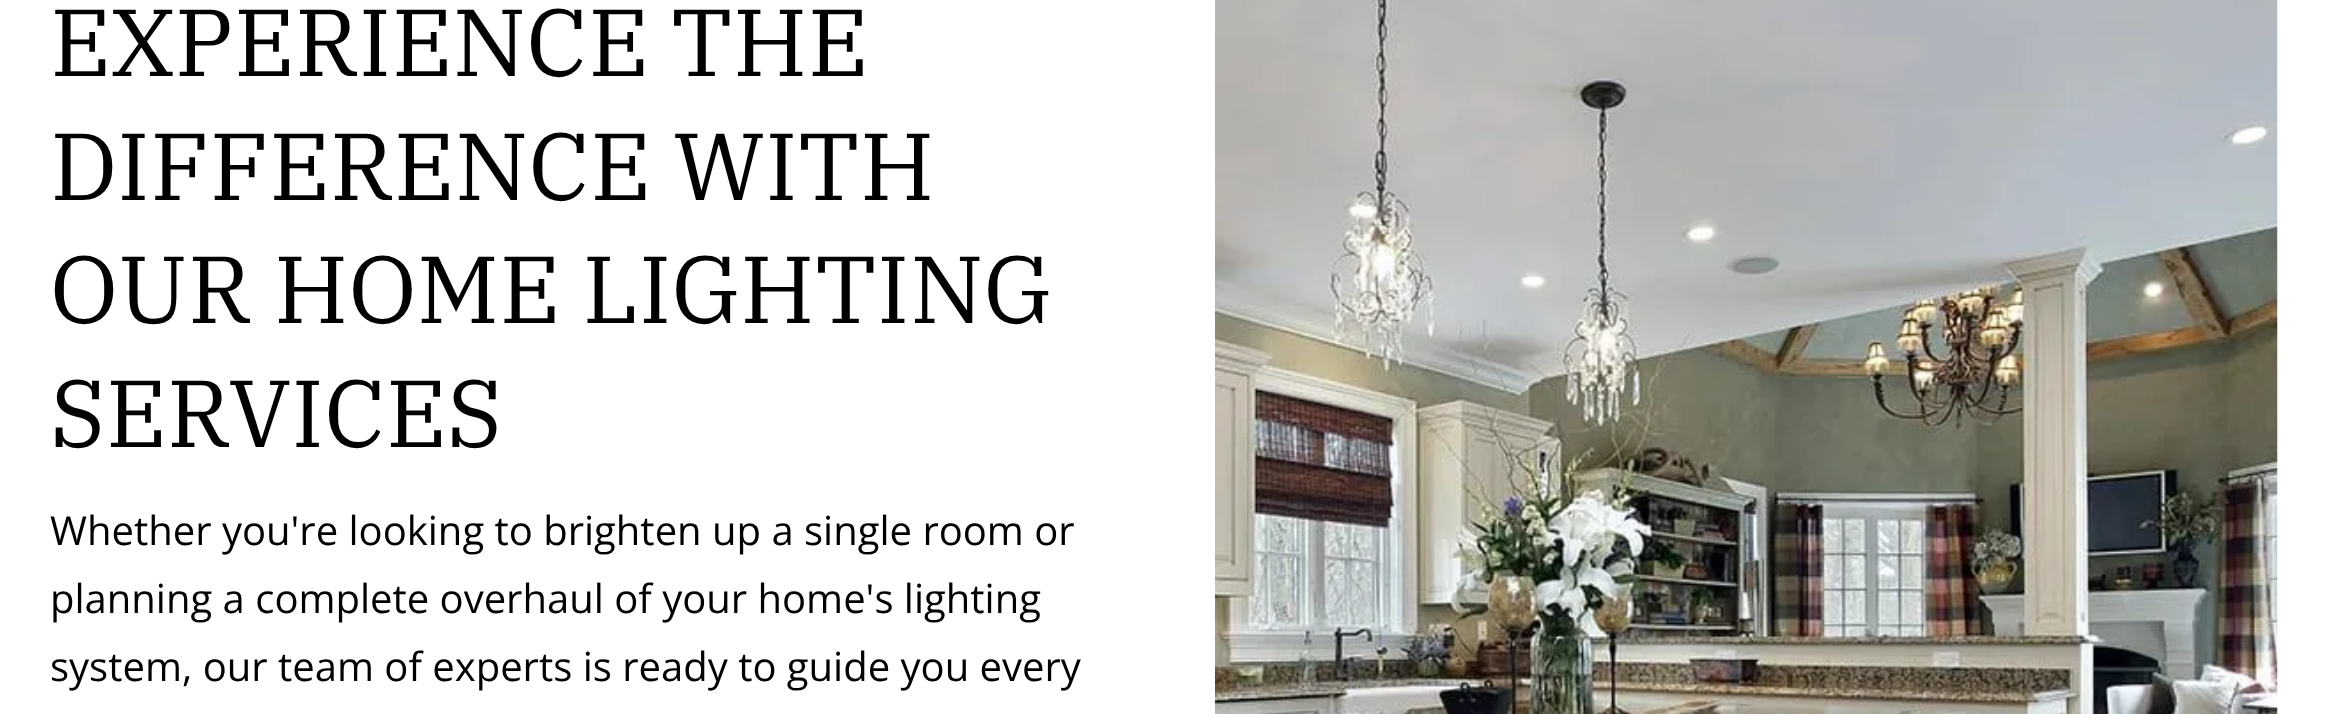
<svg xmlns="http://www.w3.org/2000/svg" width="2327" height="714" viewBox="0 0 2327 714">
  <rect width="100%" height="100%" fill="#fff"/>
  <image x="1215" y="0" width="1063" height="714" href="img/1.png"/>
  <g font-family="IBM Plex Serif" font-size="95" fill="#000">
    <text x="50" y="76">EXPERIENCE THE</text>
    <text x="50" y="200">DIFFERENCE WITH</text>
    <text x="50" y="323">OUR HOME LIGHTING</text>
    <text x="50" y="447">SERVICES</text>
  </g>
  <g font-family="Open Sans" font-size="40" fill="#000">
    <text x="50" y="545">Whether you're looking to brighten up a single room or</text>
    <text x="50" y="613">planning a complete overhaul of your home's lighting</text>
    <text x="50" y="681">system, our team of experts is ready to guide you every</text>
  </g>
</svg>
